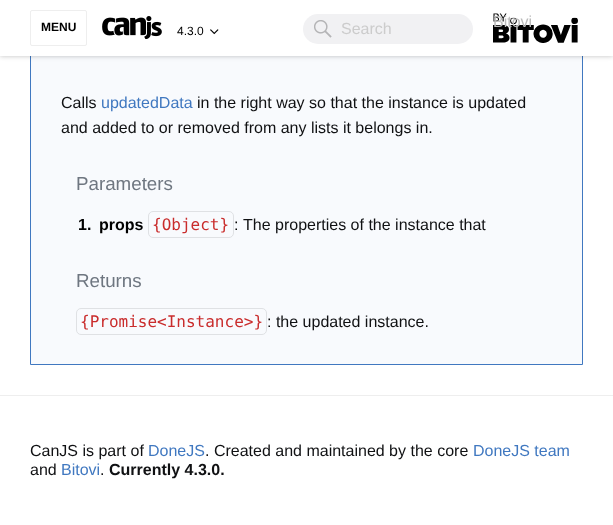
<svg xmlns="http://www.w3.org/2000/svg" width="613" height="525" viewBox="0 0 613 525">
  <rect width="100%" height="100%" fill="#fff"/>
  <path d="M31 56h551v308H31z" fill="#f8fafd"/>
  <path d="M30.5 -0.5h552v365H30.5z" fill="none" stroke="#4078c0"/>
  <path d="M0 0h613v56H0z" fill="#00000040" filter="blur(2.5px)"/>
  <path d="M0 0h613v56H0z" fill="#fff"/>
  <rect x="30.5" y="10.5" width="56" height="35" rx="1.5" fill="none" stroke="#eee"/>
  <image x="102" y="16" width="60" height="23" href="img/1.png"/>
  <image x="210" y="29" width="9" height="6" href="img/2.png"/>
  <rect x="303" y="14" width="170" height="30" rx="15" fill="#f1f1f3"/>
  <image x="314" y="20" width="18" height="18" href="img/3.png"/>
  <image x="493" y="13" width="85" height="30" href="img/4.png"/>
  <rect x="148.5" y="211.5" width="85" height="26" rx="4.5" fill="none" stroke="#dfe1e4"/>
  <rect x="76.5" y="308.5" width="190" height="26" rx="4.5" fill="none" stroke="#dfe1e4"/>
  <path d="M0 395h613v1H0z" fill="#eee"/>
  <text x="41" y="31" font-family="Liberation Sans" font-size="12" font-weight="bold" fill="#000">MENU</text>
  <text x="177" y="35" font-family="Liberation Sans" font-size="12" fill="#000">4.3.0</text>
  <text x="341" y="34" font-family="Liberation Sans" font-size="16" fill="#ccc">Search</text>
  <text x="493" y="27" font-family="Liberation Sans" font-size="16" fill="#bbb">Bitovi</text>
  <text x="61" y="108" font-family="Liberation Sans" font-size="16" fill="#101113">Calls</text>
  <text x="101" y="108" font-family="Liberation Sans" font-size="16" fill="#4078c0">updatedData</text>
  <g font-family="Liberation Sans" font-size="16" fill="#101113">
    <text x="197" y="108">in the right way so that the instance is updated</text>
    <text x="61" y="133">and added to or removed from any lists it belongs in.</text>
  </g>
  <text x="76" y="190" font-family="Liberation Sans" font-size="18.75" fill="#6e7680">Parameters</text>
  <g font-family="Liberation Sans" font-size="16" font-weight="bold" fill="#000">
    <text x="78" y="230">1.</text>
    <text x="99" y="230">props</text>
  </g>
  <text x="152" y="230" font-family="DejaVu Sans Mono" font-size="16" fill="#c92c2c">{Object}</text>
  <text x="234" y="230" font-family="Liberation Sans" font-size="16" fill="#000">:</text>
  <text x="243" y="230" font-family="Liberation Sans" font-size="16" fill="#101113">The properties of the instance that</text>
  <text x="76" y="287" font-family="Liberation Sans" font-size="18.75" fill="#6e7680">Returns</text>
  <text x="80" y="327" font-family="DejaVu Sans Mono" font-size="16" fill="#c92c2c">{Promise&lt;Instance&gt;}</text>
  <g font-family="Liberation Sans" font-size="16" fill="#101113">
    <text x="267" y="327">: the updated instance.</text>
    <text x="30" y="456">CanJS is part of</text>
  </g>
  <text x="148" y="456" font-family="Liberation Sans" font-size="16" fill="#4078c0">DoneJS</text>
  <text x="205" y="456" font-family="Liberation Sans" font-size="16" fill="#101113">. Created and maintained by the core</text>
  <text x="473" y="456" font-family="Liberation Sans" font-size="16" fill="#4078c0">DoneJS team</text>
  <text x="30" y="475" font-family="Liberation Sans" font-size="16" fill="#101113">and</text>
  <text x="61" y="475" font-family="Liberation Sans" font-size="16" fill="#4078c0">Bitovi</text>
  <text x="100" y="475" font-family="Liberation Sans" font-size="16" fill="#101113">.</text>
  <text x="109" y="475" font-family="Liberation Sans" font-size="16" font-weight="bold" fill="#101113">Currently 4.3.0.</text>
</svg>
